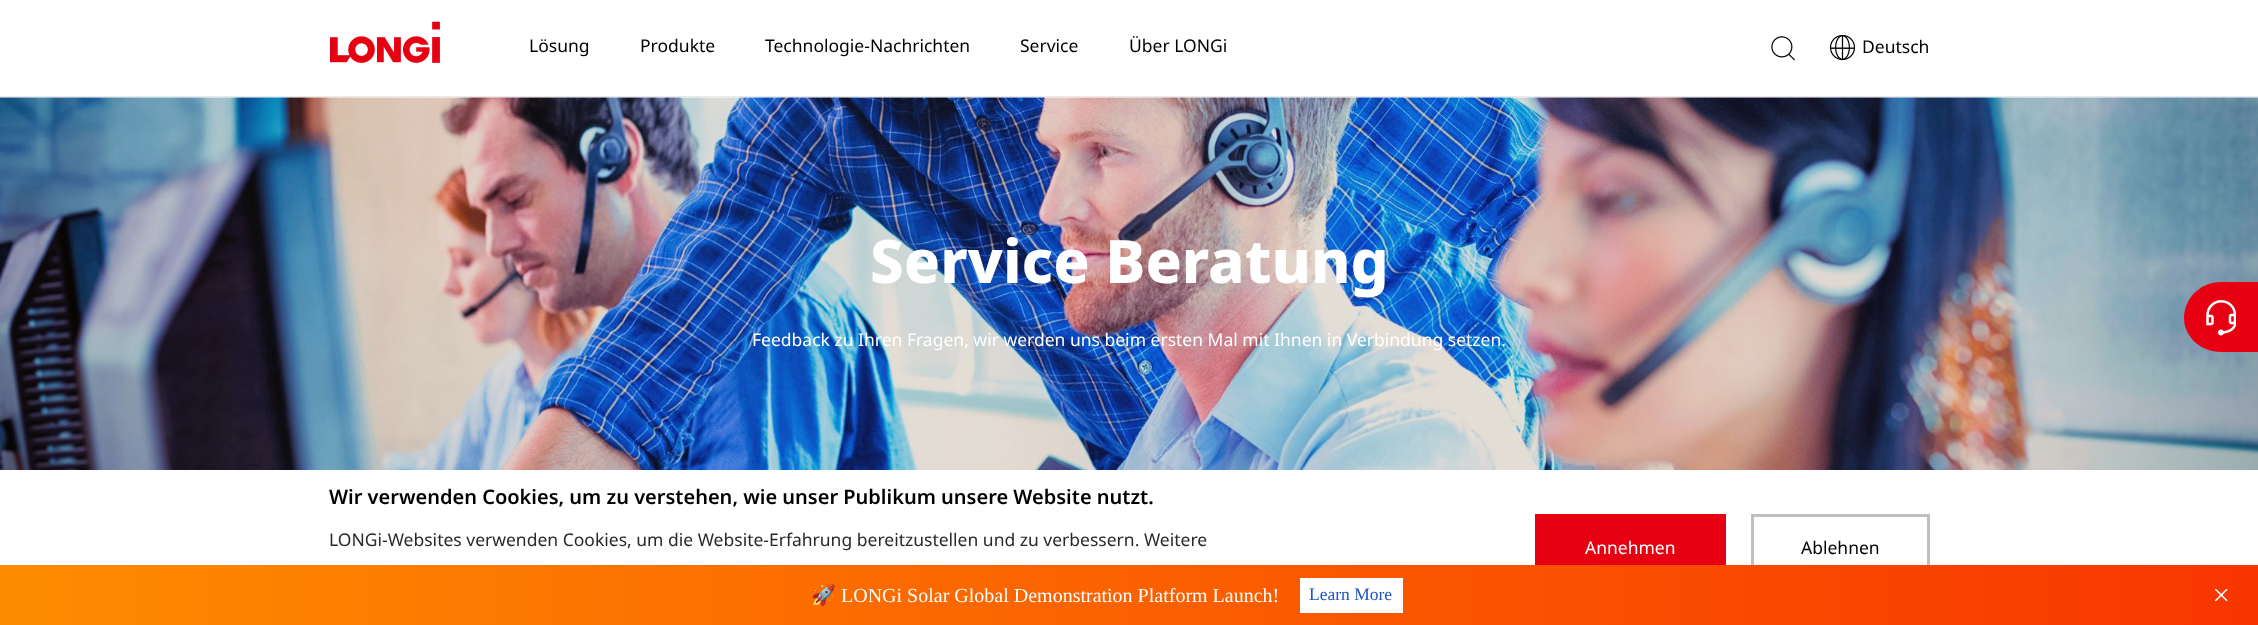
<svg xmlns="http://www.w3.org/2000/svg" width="2258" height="625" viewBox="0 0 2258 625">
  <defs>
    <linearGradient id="g1" gradientUnits="userSpaceOnUse" x1="0" y1="595" x2="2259" y2="595"><stop offset="0" stop-color="#fe8c00"/><stop offset="1" stop-color="#f83600"/></linearGradient>
  </defs>
  <rect width="100%" height="100%" fill="#fff"/>
  <path d="M0 96h2258v1H0z" fill="#eaeaea"/>
  <image x="330" y="21" width="110" height="42" href="img/1.png"/>
  <image x="1771" y="36" width="24" height="25" href="img/2.png"/>
  <image x="1829" y="34" width="27" height="27" href="img/3.png"/>
  <image x="0" y="97" width="2258" height="373" href="img/4.png"/>
  <path d="M2221 282H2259V352H2221C2201 352 2184 337 2184 318C2184 298 2201 282 2221 282Z" fill="#e60012"/>
  <image x="2206" y="300" width="30" height="36" href="img/5.png"/>
  <path d="M1535 514h191v51H1535z" fill="#e60012"/>
  <path d="M1752.5 515.5h176v64H1752.5z" fill="none" stroke="#bfbfbf" stroke-width="3"/>
  <path d="M0 565h2258v60H0z" fill="url(#g1)"/>
  <path d="M1300 578h103v35H1300z" fill="#fff"/>
  <image x="2215" y="589" width="13" height="12" href="img/6.png"/>
  <g font-family="Noto Sans" font-size="17.5" fill="#000">
    <text x="529" y="52">Lösung</text>
    <text x="640" y="52">Produkte</text>
    <text x="765" y="52">Technologie-Nachrichten</text>
    <text x="1020" y="52">Service</text>
    <text x="1129" y="52">Über LONGi</text>
    <text x="1862" y="53">Deutsch</text>
  </g>
  <text x="870" y="283" font-family="Noto Sans" font-size="60" font-weight="800" fill="#fff">Service Beratung</text>
  <text x="752" y="346" font-family="Noto Sans" font-size="17.5" fill="#fff">Feedback zu Ihren Fragen, wir werden uns beim ersten Mal mit Ihnen in Verbindung setzen.</text>
  <text x="329" y="504" font-family="Noto Sans" font-size="20" font-weight="600" fill="#000">Wir verwenden Cookies, um zu verstehen, wie unser Publikum unsere Website nutzt.</text>
  <text x="329" y="546" font-family="Noto Sans" font-size="17.5" fill="#292929">LONGi-Websites verwenden Cookies, um die Website-Erfahrung bereitzustellen und zu verbessern. Weitere</text>
  <text x="1585" y="554" font-family="Noto Sans" font-size="17.5" fill="#fff">Annehmen</text>
  <text x="1801" y="554" font-family="Noto Sans" font-size="17.5" fill="#000">Ablehnen</text>
  <text x="811" y="602" font-family="Noto Color Emoji" font-size="20" fill="#fff">🚀</text>
  <text x="841" y="602" font-family="Liberation Serif" font-size="20" fill="#fff">LONGi Solar Global Demonstration Platform Launch!</text>
  <text x="1309" y="600" font-family="Liberation Serif" font-size="17.5" fill="#1d55c4">Learn More</text>
</svg>
